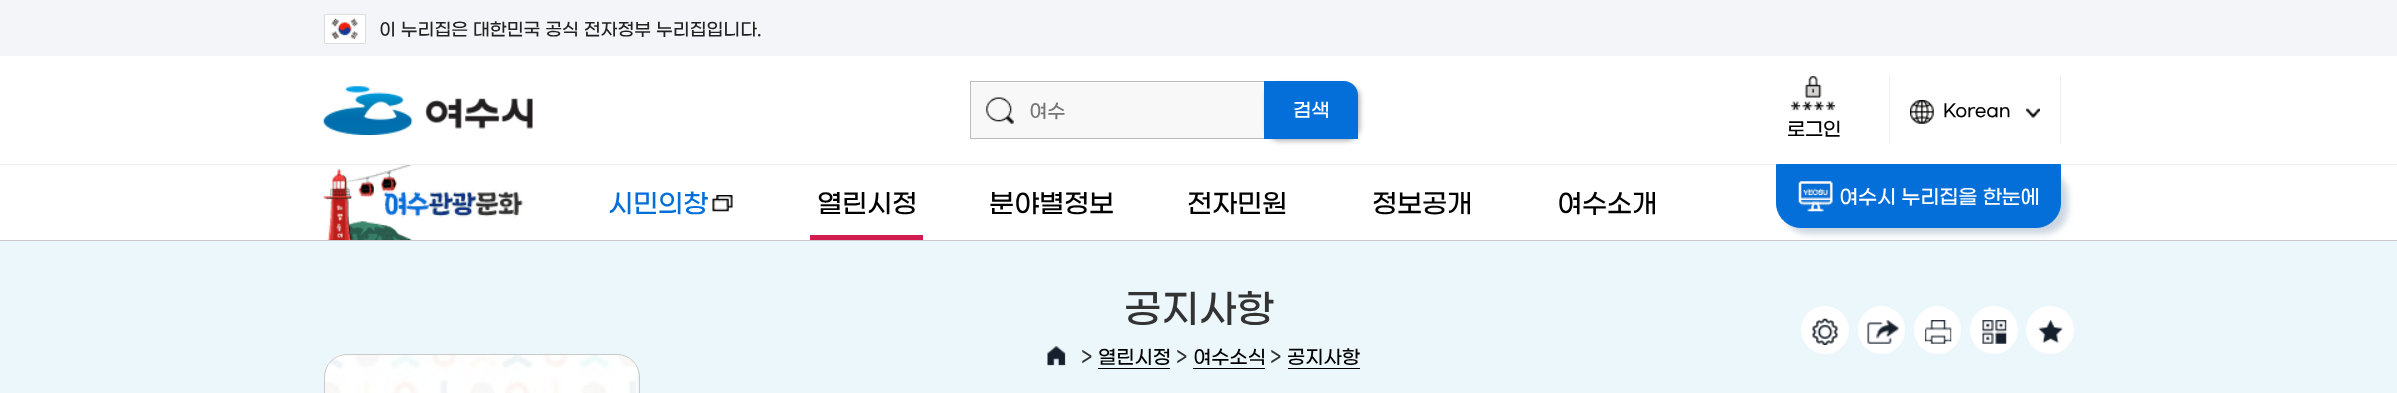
<svg xmlns="http://www.w3.org/2000/svg" width="2397" height="393" viewBox="0 0 2397 393">
  <rect width="100%" height="100%" fill="#fff"/>
  <path d="M0 0h2397v56H0z" fill="#f4f5f9"/>
  <path d="M325 15h40v28H325z" fill="#fff"/>
  <image x="331" y="18" width="27" height="22" href="img/1.png"/>
  <path d="M324.5 14.5h41v29H324.5z" fill="none" stroke="#ddd"/>
  <path d="M0 164h2397v1H0z" fill="#efefef"/>
  <image x="323" y="86" width="210" height="49" href="img/2.png"/>
  <path d="M971 83h293v55H971z" fill="#f8f8f8"/>
  <image x="986" y="97" width="28" height="27" href="img/3.png"/>
  <path d="M970 81h294v1H970z" fill="#bbb"/>
  <path d="M970 138h294v1H970z" fill="#bbb"/>
  <path d="M970 81h1v58H970z" fill="#bbb"/>
  <rect x="1266" y="84" width="94" height="57" rx="14" fill="#0000004d" filter="blur(2.5px)"/>
  <path d="M1264 81H1344C1351.5 81 1358 87.5 1358 95V139H1264Z" fill="#046fd9"/>
  <path d="M2060 76h1v68H2060z" fill="#efefef"/>
  <path d="M1889 76h1v68H1889z" fill="#efefef"/>
  <image x="1910" y="100" width="24" height="24" href="img/4.png"/>
  <image x="2026" y="108" width="14" height="10" href="img/5.png"/>
  <image x="1791" y="76" width="44" height="35" href="img/6.png"/>
  <path d="M0 240h2397v1H0z" fill="#cacaca"/>
  <image x="323" y="165" width="202" height="75" href="img/7.png"/>
  <image x="712" y="195" width="21" height="17" href="img/8.png"/>
  <path d="M810 235h113v5H810z" fill="#d21b4f"/>
  <path d="M0 241h2397v152H0z" fill="#ebf7fb"/>
  <rect x="1783" y="170" width="285" height="64" rx="25" fill="#5576974d" filter="blur(3px)"/>
  <path d="M1776.5 164.5H2060.5V203C2060.5 216.5 2049.5 227.5 2036 227.5H1801C1787.5 227.5 1776.5 216.5 1776.5 203Z" fill="#046fd9" stroke="#046fd9"/>
  <image x="1798" y="181" width="35" height="31" href="img/9.png"/>
  <image x="1047" y="346" width="19" height="20" href="img/10.png"/>
  <path d="M1098 368h72v1H1098z" fill="#000"/>
  <path d="M1193 368h72v1H1193z" fill="#000"/>
  <path d="M1288 368h72v1H1288z" fill="#000"/>
  <circle cx="1825" cy="330" r="24" fill="#fff"/>
  <image x="1812" y="318" width="26" height="27" href="img/11.png"/>
  <rect x="1858" y="306" width="47" height="48" rx="23.5" fill="#fff"/>
  <image x="1867" y="320" width="32" height="24" href="img/12.png"/>
  <rect x="1914" y="306" width="47" height="48" rx="23.5" fill="#fff"/>
  <image x="1925" y="320" width="27" height="24" href="img/13.png"/>
  <circle cx="1994" cy="330" r="24" fill="#fff"/>
  <image x="1982" y="320" width="25" height="24" href="img/14.png"/>
  <circle cx="2050" cy="330" r="24" fill="#fff"/>
  <image x="2038" y="320" width="25" height="23" href="img/15.png"/>
  <image x="325" y="355" width="313" height="38" href="img/16.png"/>
  <path d="M347 354.5H617C629.5 354.5 639.5 364.5 639.5 377V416.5H324.5V377C324.5 364.5 334.5 354.5 347 354.5Z" fill="none" stroke="#cacaca"/>
  <text x="379" y="33" font-family="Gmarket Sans" font-size="17.5" font-weight="500" fill="#222">이 누리집은 대한민국 공식 전자정부 누리집입니다.</text>
  <text x="1029" y="115" font-family="Gmarket Sans" font-size="19" font-weight="500" fill="#757575">여수</text>
  <text x="1293" y="114" font-family="Gmarket Sans" font-size="19" font-weight="500" fill="#fff">검색</text>
  <text x="1943" y="114" font-family="Gmarket Sans" font-size="17.5" font-weight="500" letter-spacing="-0.25" fill="#000">Korean</text>
  <text x="1787" y="133" font-family="Gmarket Sans" font-size="19" font-weight="500" letter-spacing="-0.25" fill="#000">로그인</text>
  <text x="608" y="209" font-family="Gmarket Sans" font-size="26.25" font-weight="500" letter-spacing="-0.25" fill="#046fd9">시민의창</text>
  <g font-family="Gmarket Sans" font-size="26.25" font-weight="500" letter-spacing="-0.25" fill="#000">
    <text x="817" y="209">열린시정</text>
    <text x="989" y="209">분야별정보</text>
    <text x="1187" y="209">전자민원</text>
    <text x="1372" y="209">정보공개</text>
    <text x="1557" y="209">여수소개</text>
  </g>
  <text x="1839" y="201" font-family="Gmarket Sans" font-size="20" font-weight="500" letter-spacing="-0.25" fill="#fff">여수시 누리집을 한눈에</text>
  <text x="1124" y="317" font-family="Gmarket Sans" font-size="39" font-weight="500" fill="#333">공지사항</text>
  <text x="1081" y="361" font-family="Gmarket Sans" font-size="20" font-weight="500" fill="#333">&gt;</text>
  <text x="1098" y="361" font-family="Gmarket Sans" font-size="19" font-weight="500" fill="#000">열린시정</text>
  <text x="1176" y="361" font-family="Gmarket Sans" font-size="20" font-weight="500" fill="#333">&gt;</text>
  <text x="1193" y="361" font-family="Gmarket Sans" font-size="19" font-weight="500" fill="#000">여수소식</text>
  <text x="1270" y="361" font-family="Gmarket Sans" font-size="20" font-weight="500" fill="#333">&gt;</text>
  <text x="1287" y="361" font-family="Gmarket Sans" font-size="19" font-weight="500" fill="#000">공지사항</text>
</svg>
